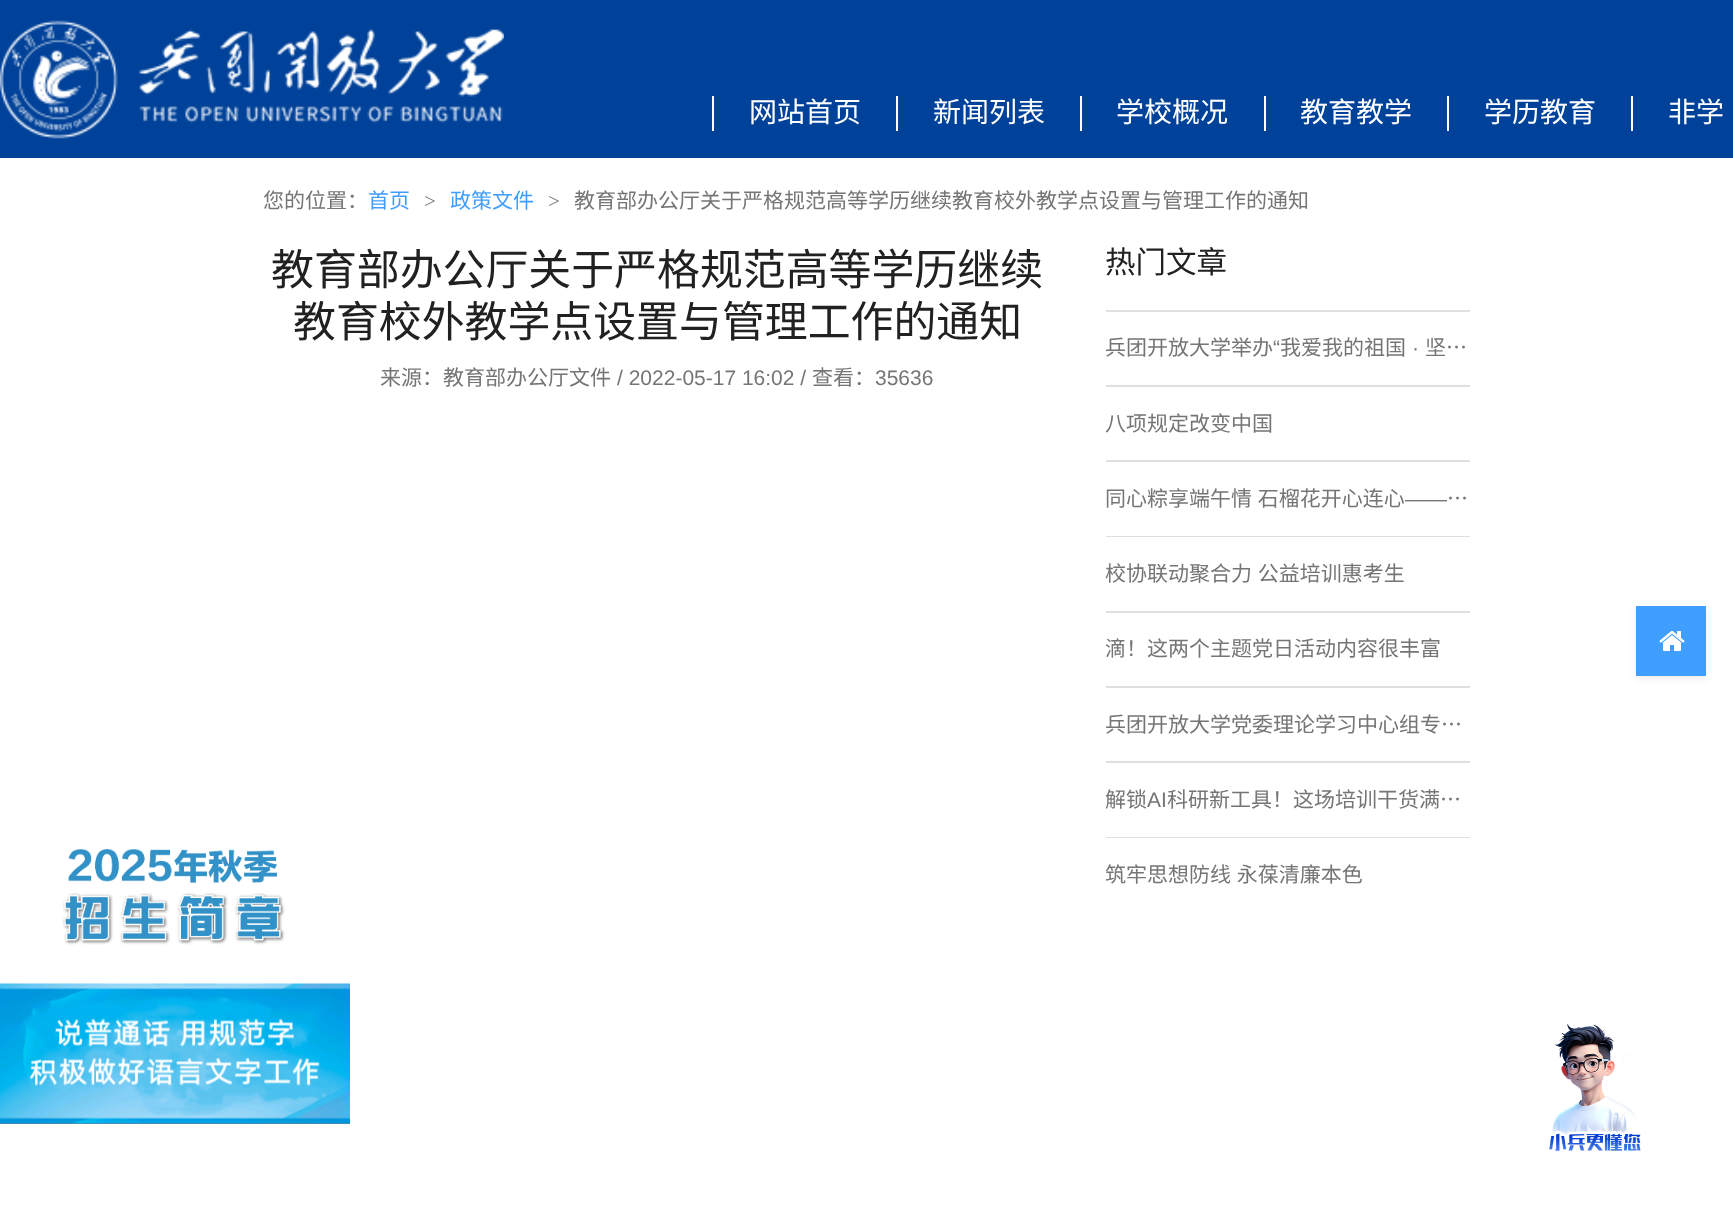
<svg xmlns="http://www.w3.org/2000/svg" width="1733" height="1211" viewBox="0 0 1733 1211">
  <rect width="100%" height="100%" fill="#fff"/>
  <path d="M0 0h1733v158H0z" fill="#004299"/>
  <image x="0" y="20" width="504" height="119" href="img/1.png"/>
  <path d="M712 96h2v35H712z" fill="#fff"/>
  <path d="M896 96h2v35H896z" fill="#fff"/>
  <path d="M1080 96h2v35H1080z" fill="#fff"/>
  <path d="M1264 96h2v35H1264z" fill="#fff"/>
  <path d="M1447 96h2v35H1447z" fill="#fff"/>
  <path d="M1631 96h2v35H1631z" fill="#fff"/>
  <path d="M1106 310h364v2H1106z" fill="#e0e0e0"/>
  <path d="M1106 385h364v2H1106z" fill="#dfdfdf"/>
  <path d="M1106 460h364v2H1106z" fill="#dfdfdf"/>
  <path d="M1106 536h364v1H1106z" fill="#dfdfdf"/>
  <path d="M1106 611h364v2H1106z" fill="#dfdfdf"/>
  <path d="M1106 686h364v2H1106z" fill="#dfdfdf"/>
  <path d="M1106 761h364v2H1106z" fill="#dfdfdf"/>
  <path d="M1106 837h364v1H1106z" fill="#dfdfdf"/>
  <path d="M1636 609h70v70H1636z" fill="#00000012" filter="blur(3.5px)"/>
  <path d="M1636 606h70v70H1636z" fill="#409eff"/>
  <image x="1659" y="631" width="26" height="20" href="img/2.png"/>
  <image x="0" y="826" width="350" height="140" href="img/3.png"/>
  <path d="M0 1123h350v1H0z" fill="#808080"/>
  <image x="0" y="983" width="350" height="141" href="img/4.png"/>
  <image x="1549" y="1023" width="92" height="128" href="img/5.png"/>
  <g font-family="Noto Sans CJK SC" font-size="28" fill="#fff">
    <text x="749" y="122">网站首页</text>
    <text x="933" y="122">新闻列表</text>
    <text x="1116" y="122">学校概况</text>
    <text x="1300" y="122">教育教学</text>
    <text x="1484" y="122">学历教育</text>
    <text x="1668" y="122">非学</text>
  </g>
  <text x="263" y="208" font-family="Noto Sans CJK SC" font-size="21" fill="#757575">您的位置：</text>
  <text x="368" y="208" font-family="Noto Sans CJK SC" font-size="21" fill="#409eff">首页</text>
  <text x="424" y="208" font-family="Liberation Serif" font-size="21" fill="#757575">&gt;</text>
  <text x="450" y="208" font-family="Noto Sans CJK SC" font-size="21" fill="#409eff">政策文件</text>
  <text x="548" y="208" font-family="Liberation Serif" font-size="21" fill="#757575">&gt;</text>
  <text x="574" y="208" font-family="Noto Sans CJK SC" font-size="21" fill="#757575">教育部办公厅关于严格规范高等学历继续教育校外教学点设置与管理工作的通知</text>
  <g font-family="Noto Sans CJK SC" font-size="42.9" fill="#212121">
    <text x="271" y="285">教育部办公厅关于严格规范高等学历继续</text>
    <text x="293" y="337">教育校外教学点设置与管理工作的通知</text>
  </g>
  <text x="380" y="385" font-family="Noto Sans CJK SC" font-size="21" fill="#757575">来源：教育部办公厅文件</text>
  <text x="617" y="385" font-family="Liberation Sans" font-size="21" fill="#757575">/ 2022-05-17 16:02 /</text>
  <text x="812" y="385" font-family="Noto Sans CJK SC" font-size="21" fill="#757575">查看：</text>
  <text x="875" y="385" font-family="Liberation Sans" font-size="21" fill="#757575">35636</text>
  <text x="1105" y="273" font-family="Noto Sans CJK SC" font-size="30.5" fill="#212121">热门文章</text>
  <text x="1105" y="355" font-family="Noto Sans CJK SC" font-size="21" fill="#757575">兵团开放大学举办</text>
  <text x="1273" y="355" font-family="Liberation Sans" font-size="21" fill="#757575">“</text>
  <g font-family="Noto Sans CJK SC" font-size="21" fill="#757575">
    <text x="1280" y="355">我爱我的祖国</text>
    <text x="1425" y="355">坚…</text>
  </g>
  <text x="1412" y="355" font-family="Liberation Sans" font-size="21" fill="#757575">·</text>
  <g font-family="Noto Sans CJK SC" font-size="21" fill="#757575">
    <text x="1105" y="431">八项规定改变中国</text>
    <text x="1105" y="506" word-spacing="1">同心粽享端午情 石榴花开心连心</text>
    <text x="1447" y="506">…</text>
  </g>
  <text x="1405" y="506" font-family="Liberation Sans" font-size="21" fill="#757575">——</text>
  <g font-family="Noto Sans CJK SC" font-size="21" fill="#757575">
    <text x="1105" y="581" word-spacing="1">校协联动聚合力 公益培训惠考生</text>
    <text x="1105" y="656">滴！这两个主题党日活动内容很丰富</text>
    <text x="1105" y="732">兵团开放大学党委理论学习中心组专…</text>
    <text x="1105" y="807">解锁</text>
  </g>
  <text x="1147" y="807" font-family="Liberation Sans" font-size="21" fill="#757575">AI</text>
  <g font-family="Noto Sans CJK SC" font-size="21" fill="#757575">
    <text x="1167" y="807">科研新工具！这场培训干货满…</text>
    <text x="1105" y="882" word-spacing="1">筑牢思想防线 永葆清廉本色</text>
  </g>
</svg>
